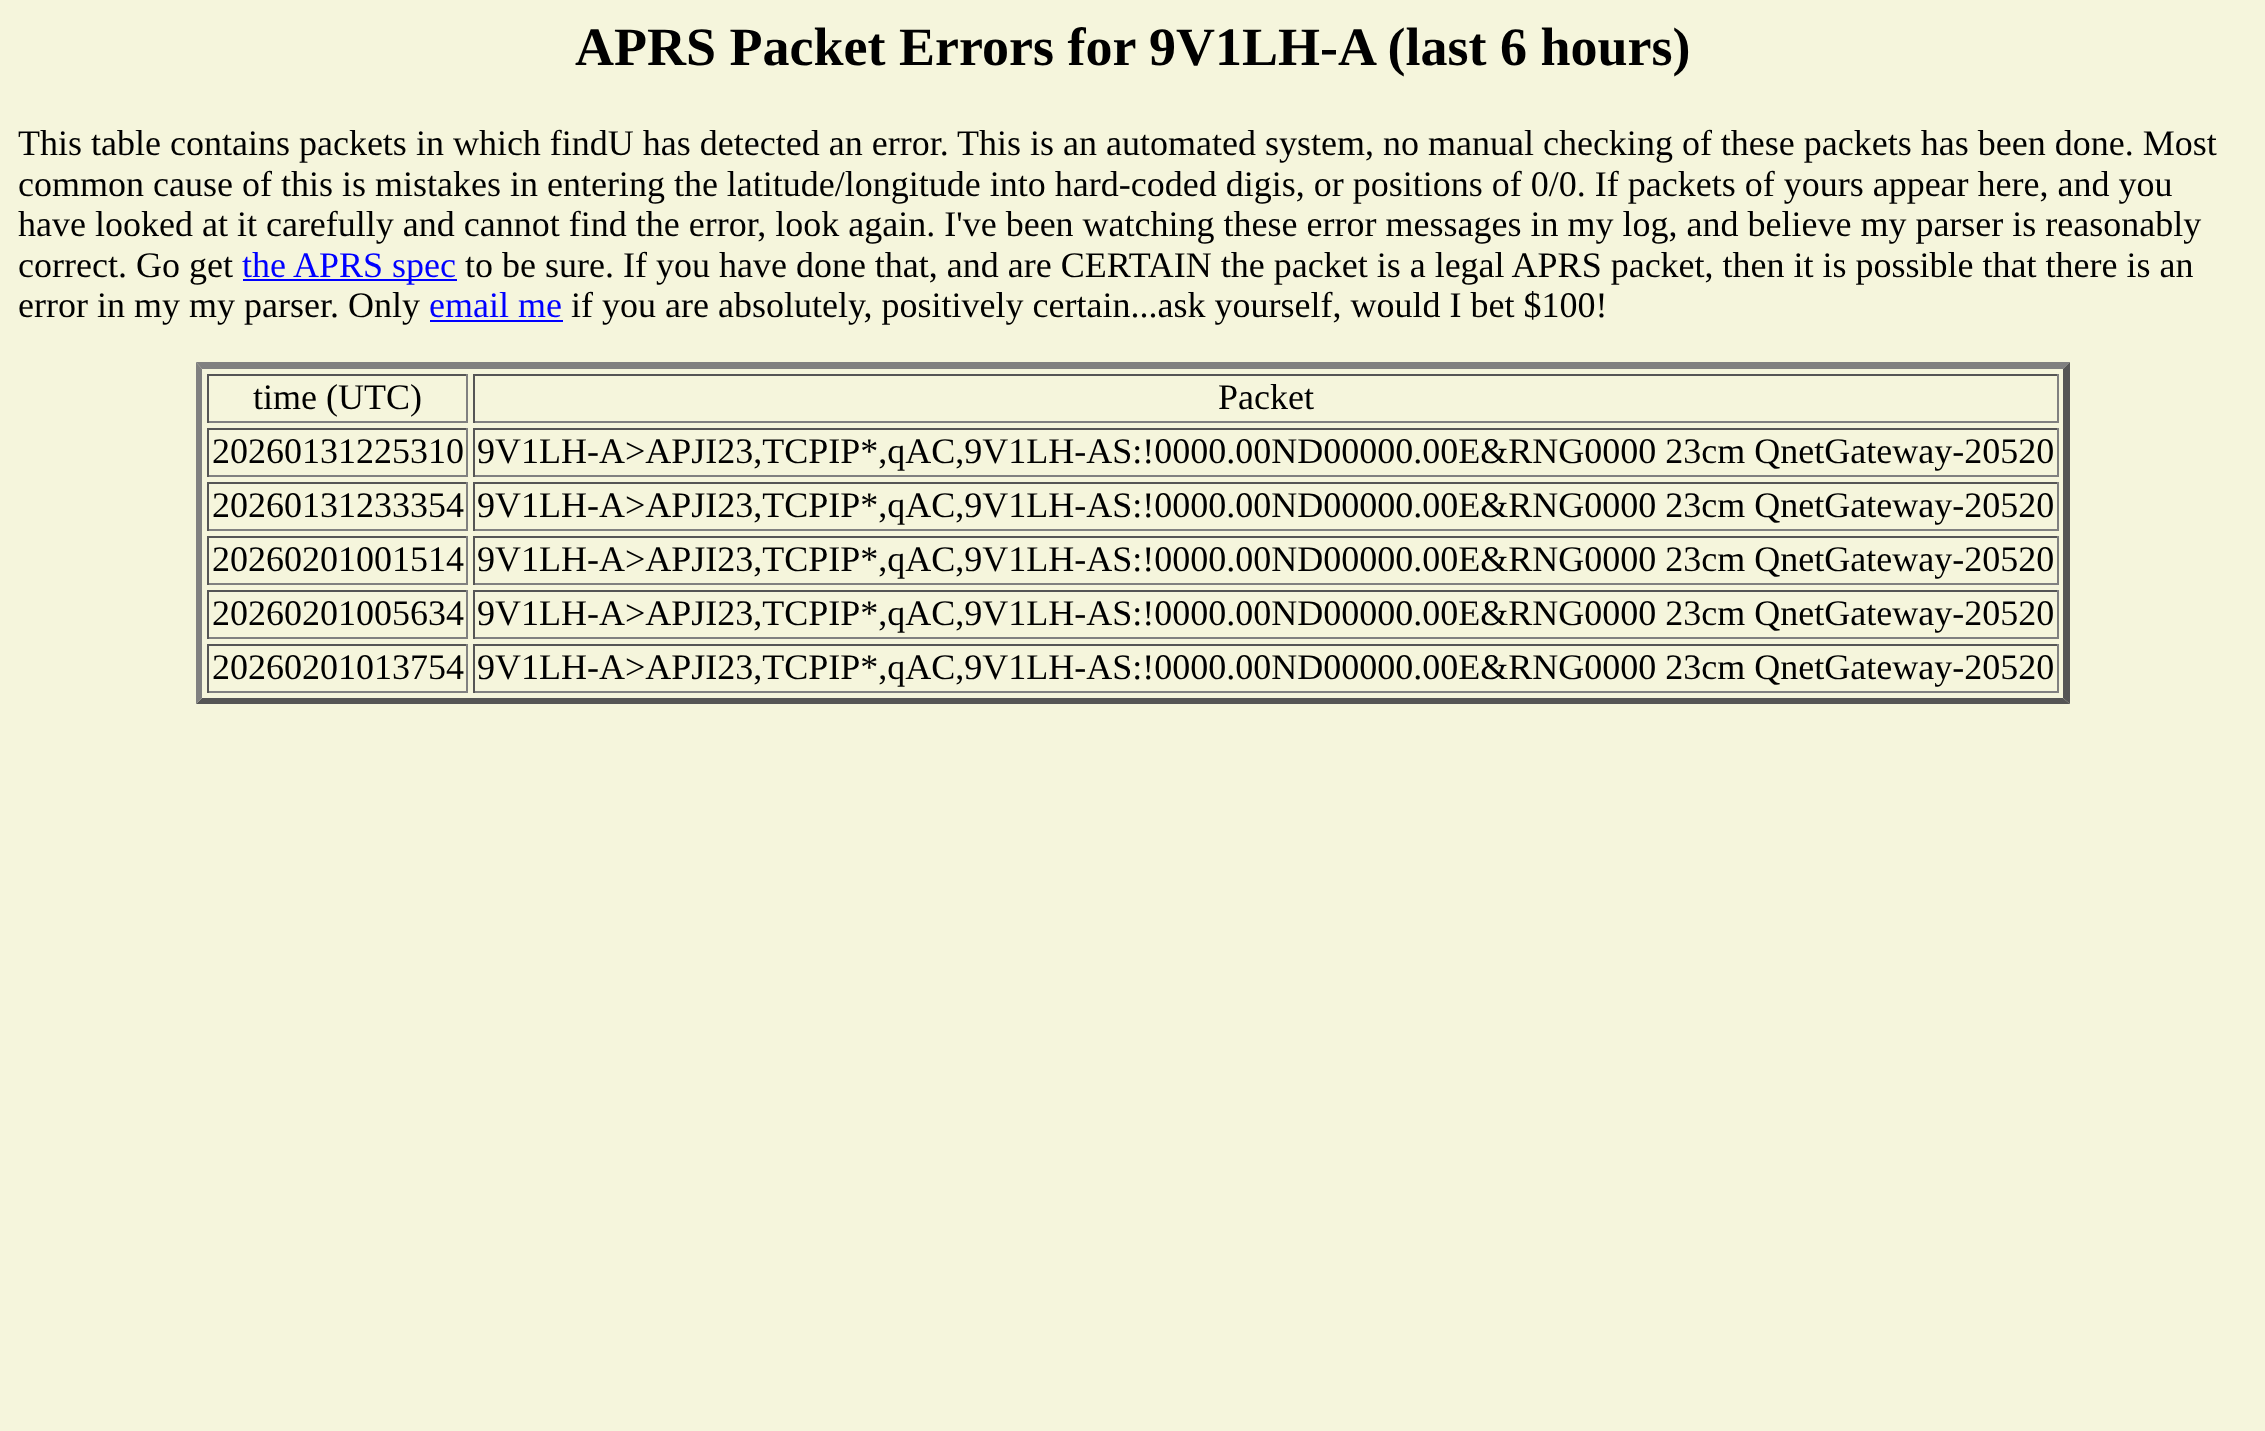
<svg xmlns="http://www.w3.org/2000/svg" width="2265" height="1431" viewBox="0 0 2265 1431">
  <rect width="100%" height="100%" fill="#f5f5dc"/>
  <path d="M243 279h214v2H243z" fill="#00f"/>
  <path d="M430 320h133v2H430z" fill="#00f"/>
  <path d="M196 362H2070L2063 369H202Z" fill="#808080"/>
  <path d="M2070 362V704L2063 698V369Z" fill="#555"/>
  <path d="M2070 704H196L202 698H2063Z" fill="#555"/>
  <path d="M196 704V362L202 369V698Z" fill="#808080"/>
  <path d="M207 374h261v2H207z" fill="#555"/>
  <path d="M466 374h2v49H466z" fill="#808080"/>
  <path d="M207 421h261v2H207z" fill="#808080"/>
  <path d="M207 374h2v49H207z" fill="#555"/>
  <path d="M473 374h1586v2H473z" fill="#555"/>
  <path d="M2057 374h2v49H2057z" fill="#808080"/>
  <path d="M473 421h1586v2H473z" fill="#808080"/>
  <path d="M473 374h2v49H473z" fill="#555"/>
  <path d="M207 428h261v2H207z" fill="#555"/>
  <path d="M466 428h2v49H466z" fill="#808080"/>
  <path d="M207 475h261v2H207z" fill="#808080"/>
  <path d="M207 428h2v49H207z" fill="#555"/>
  <path d="M473 428h1586v2H473z" fill="#555"/>
  <path d="M2057 428h2v49H2057z" fill="#808080"/>
  <path d="M473 475h1586v2H473z" fill="#808080"/>
  <path d="M473 428h2v49H473z" fill="#555"/>
  <path d="M207 482h261v2H207z" fill="#555"/>
  <path d="M466 482h2v49H466z" fill="#808080"/>
  <path d="M207 529h261v2H207z" fill="#808080"/>
  <path d="M207 482h2v49H207z" fill="#555"/>
  <path d="M473 482h1586v2H473z" fill="#555"/>
  <path d="M2057 482h2v49H2057z" fill="#808080"/>
  <path d="M473 529h1586v2H473z" fill="#808080"/>
  <path d="M473 482h2v49H473z" fill="#555"/>
  <path d="M207 536h261v2H207z" fill="#555"/>
  <path d="M466 536h2v49H466z" fill="#808080"/>
  <path d="M207 583h261v2H207z" fill="#808080"/>
  <path d="M207 536h2v49H207z" fill="#555"/>
  <path d="M473 536h1586v2H473z" fill="#555"/>
  <path d="M2057 536h2v49H2057z" fill="#808080"/>
  <path d="M473 583h1586v2H473z" fill="#808080"/>
  <path d="M473 536h2v49H473z" fill="#555"/>
  <path d="M207 590h261v2H207z" fill="#555"/>
  <path d="M466 590h2v49H466z" fill="#808080"/>
  <path d="M207 637h261v2H207z" fill="#808080"/>
  <path d="M207 590h2v49H207z" fill="#555"/>
  <path d="M473 590h1586v2H473z" fill="#555"/>
  <path d="M2057 590h2v49H2057z" fill="#808080"/>
  <path d="M473 637h1586v2H473z" fill="#808080"/>
  <path d="M473 590h2v49H473z" fill="#555"/>
  <path d="M207 644h261v2H207z" fill="#555"/>
  <path d="M466 644h2v49H466z" fill="#808080"/>
  <path d="M207 691h261v2H207z" fill="#808080"/>
  <path d="M207 644h2v49H207z" fill="#555"/>
  <path d="M473 644h1586v2H473z" fill="#555"/>
  <path d="M2057 644h2v49H2057z" fill="#808080"/>
  <path d="M473 691h1586v2H473z" fill="#808080"/>
  <path d="M473 644h2v49H473z" fill="#555"/>
  <text x="575" y="65" font-family="Liberation Serif" font-size="54" font-weight="bold" fill="#000">APRS Packet Errors for 9V1LH-A (last 6 hours)</text>
  <g font-family="Liberation Serif" font-size="36" fill="#000">
    <text x="18" y="155">This table contains packets in which findU has detected an error. This is an automated system, no manual checking of these packets has been done. Most</text>
    <text x="18" y="196">common cause of this is mistakes in entering the latitude/longitude into hard-coded digis, or positions of 0/0. If packets of yours appear here, and you</text>
    <text x="18" y="236">have looked at it carefully and cannot find the error, look again. I've been watching these error messages in my log, and believe my parser is reasonably</text>
    <text x="18" y="277">correct. Go get</text>
  </g>
  <text x="242" y="277" font-family="Liberation Serif" font-size="36" fill="#00f">the APRS spec</text>
  <g font-family="Liberation Serif" font-size="36" fill="#000">
    <text x="465" y="277">to be sure. If you have done that, and are CERTAIN the packet is a legal APRS packet, then it is possible that there is an</text>
    <text x="18" y="317">error in my my parser. Only</text>
  </g>
  <text x="429" y="317" font-family="Liberation Serif" font-size="36" fill="#00f">email me</text>
  <g font-family="Liberation Serif" font-size="36" fill="#000">
    <text x="571" y="317">if you are absolutely, positively certain...ask yourself, would I bet $100!</text>
    <text x="253" y="409">time (UTC)</text>
    <text x="1218" y="409">Packet</text>
    <text x="212" y="463">20260131225310</text>
    <text x="477" y="463">9V1LH-A&gt;APJI23,TCPIP*,qAC,9V1LH-AS:!0000.00ND00000.00E&amp;RNG0000 23cm QnetGateway-20520</text>
    <text x="212" y="517">20260131233354</text>
    <text x="477" y="517">9V1LH-A&gt;APJI23,TCPIP*,qAC,9V1LH-AS:!0000.00ND00000.00E&amp;RNG0000 23cm QnetGateway-20520</text>
    <text x="212" y="571">20260201001514</text>
    <text x="477" y="571">9V1LH-A&gt;APJI23,TCPIP*,qAC,9V1LH-AS:!0000.00ND00000.00E&amp;RNG0000 23cm QnetGateway-20520</text>
    <text x="212" y="625">20260201005634</text>
    <text x="477" y="625">9V1LH-A&gt;APJI23,TCPIP*,qAC,9V1LH-AS:!0000.00ND00000.00E&amp;RNG0000 23cm QnetGateway-20520</text>
    <text x="212" y="679">20260201013754</text>
    <text x="477" y="679">9V1LH-A&gt;APJI23,TCPIP*,qAC,9V1LH-AS:!0000.00ND00000.00E&amp;RNG0000 23cm QnetGateway-20520</text>
  </g>
</svg>
